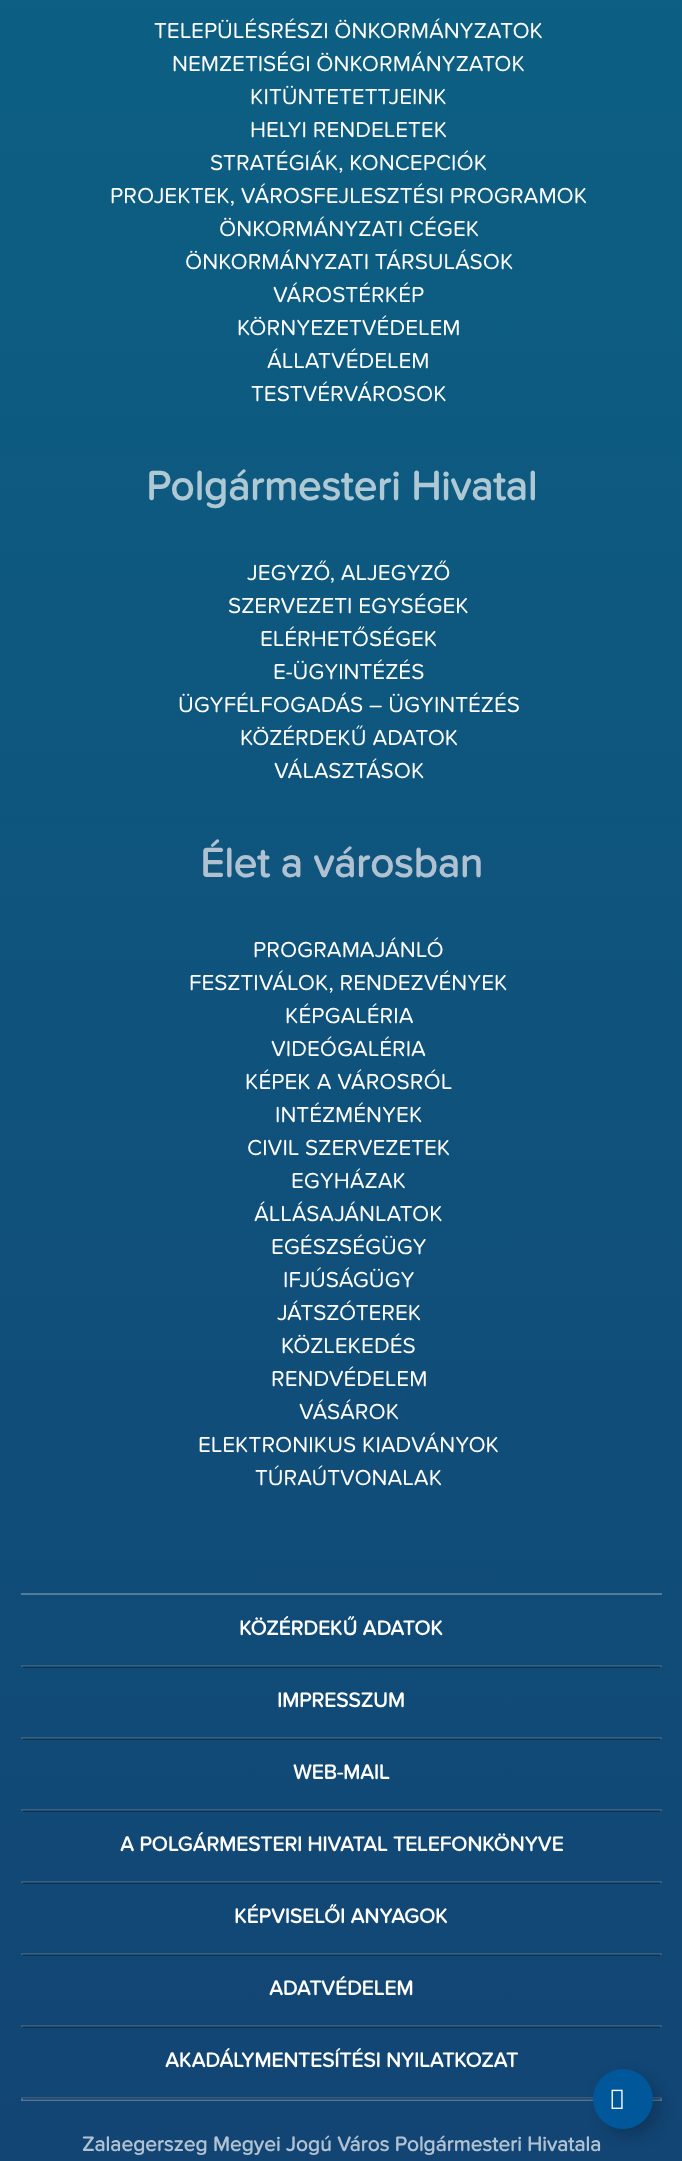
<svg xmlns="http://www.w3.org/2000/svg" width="682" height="2161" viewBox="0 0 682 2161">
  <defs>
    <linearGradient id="g1" gradientUnits="userSpaceOnUse" x1="341" y1="-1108" x2="341" y2="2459"><stop offset="0.3" stop-color="#0c6083"/><stop offset="1" stop-color="#134172"/></linearGradient>
    <linearGradient id="g2" gradientUnits="userSpaceOnUse" x1="341" y1="-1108" x2="341" y2="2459"><stop offset="0.3" stop-color="#2c7593"/><stop offset="1" stop-color="#325a84"/></linearGradient>
    <linearGradient id="g3" gradientUnits="userSpaceOnUse" x1="341" y1="-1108" x2="341" y2="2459"><stop offset="0.3" stop-color="#285b71"/><stop offset="1" stop-color="#2c4967"/></linearGradient>
  </defs>
  <rect width="100%" height="100%" fill="#fff"/>
  <path d="M0 0h682v2161H0z" fill="url(#g1)"/>
  <path d="M21 2097h641v2H21z" fill="url(#g2)"/>
  <path d="M23 2098h637v1H23z" fill="url(#g3)"/>
  <path d="M21 2025h641v2H21z" fill="url(#g2)"/>
  <path d="M21 1953h641v2H21z" fill="url(#g2)"/>
  <path d="M21 1881h641v2H21z" fill="url(#g2)"/>
  <path d="M21 1809h641v2H21z" fill="url(#g2)"/>
  <path d="M21 1737h641v2H21z" fill="url(#g2)"/>
  <path d="M21 1665h641v2H21z" fill="url(#g2)"/>
  <path d="M21 1593h641v2H21z" fill="#517c9c"/>
  <path d="M21 2099h641v2H21z" fill="#517799"/>
  <path d="M23 2099h637v1H23z" fill="#39536b"/>
  <path d="M23 1667h637v1H23z" fill="#0c3553"/>
  <path d="M23 1666h637v1H23z" fill="#2c4f69"/>
  <path d="M23 1739h637v1H23z" fill="#0c3453"/>
  <path d="M23 1738h637v1H23z" fill="#2c4e69"/>
  <path d="M23 1811h637v1H23z" fill="#0c3353"/>
  <path d="M23 1810h637v1H23z" fill="#2c4e69"/>
  <path d="M23 1883h637v1H23z" fill="#0c3253"/>
  <path d="M23 1882h637v1H23z" fill="#2c4d69"/>
  <path d="M23 1955h637v1H23z" fill="#0d3252"/>
  <path d="M23 1954h637v1H23z" fill="#2c4d68"/>
  <path d="M23 2027h637v1H23z" fill="#0d3152"/>
  <path d="M23 2026h637v1H23z" fill="#2c4c68"/>
  <rect x="600" y="2076" width="60" height="60" rx="30" fill="#00000033" filter="blur(7.5px)"/>
  <circle cx="623" cy="2099" r="30" fill="#00579a"/>
  <image x="611" y="2089" width="12" height="20" href="img/1.png"/>
  <g font-family="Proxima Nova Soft" font-size="22.5" fill="#fff">
    <text x="154" y="38">TELEPÜLÉSRÉSZI ÖNKORMÁNYZATOK</text>
    <text x="172" y="71">NEMZETISÉGI ÖNKORMÁNYZATOK</text>
    <text x="250" y="104">KITÜNTETETTJEINK</text>
    <text x="250" y="137">HELYI RENDELETEK</text>
    <text x="210" y="170">STRATÉGIÁK, KONCEPCIÓK</text>
    <text x="110" y="203">PROJEKTEK, VÁROSFEJLESZTÉSI PROGRAMOK</text>
    <text x="219" y="236">ÖNKORMÁNYZATI CÉGEK</text>
    <text x="185" y="269">ÖNKORMÁNYZATI TÁRSULÁSOK</text>
    <text x="273" y="302">VÁROSTÉRKÉP</text>
    <text x="237" y="335">KÖRNYEZETVÉDELEM</text>
    <text x="267" y="368">ÁLLATVÉDELEM</text>
    <text x="251" y="401">TESTVÉRVÁROSOK</text>
  </g>
  <text x="146" y="500" font-family="Proxima Nova Soft" font-size="42" font-weight="bold" fill="#aec8d4">Polgármesteri Hivatal</text>
  <g font-family="Proxima Nova Soft" font-size="22.5" fill="#fff">
    <text x="247" y="580">JEGYZŐ, ALJEGYZŐ</text>
    <text x="228" y="613">SZERVEZETI EGYSÉGEK</text>
    <text x="260" y="646">ELÉRHETŐSÉGEK</text>
    <text x="273" y="679">E-ÜGYINTÉZÉS</text>
    <text x="178" y="712">ÜGYFÉLFOGADÁS – ÜGYINTÉZÉS</text>
    <text x="240" y="745">KÖZÉRDEKŰ ADATOK</text>
    <text x="274" y="778">VÁLASZTÁSOK</text>
  </g>
  <text x="200" y="877" font-family="Proxima Nova Soft" font-size="42" font-weight="bold" fill="#b0c1d1">Élet a városban</text>
  <g font-family="Proxima Nova Soft" font-size="22.5" fill="#fff">
    <text x="253" y="957">PROGRAMAJÁNLÓ</text>
    <text x="189" y="990">FESZTIVÁLOK, RENDEZVÉNYEK</text>
    <text x="285" y="1023">KÉPGALÉRIA</text>
    <text x="271" y="1056">VIDEÓGALÉRIA</text>
    <text x="245" y="1089">KÉPEK A VÁROSRÓL</text>
    <text x="275" y="1122">INTÉZMÉNYEK</text>
    <text x="247" y="1155">CIVIL SZERVEZETEK</text>
    <text x="291" y="1188">EGYHÁZAK</text>
    <text x="254" y="1221">ÁLLÁSAJÁNLATOK</text>
    <text x="271" y="1254">EGÉSZSÉGÜGY</text>
    <text x="283" y="1287">IFJÚSÁGÜGY</text>
    <text x="277" y="1320">JÁTSZÓTEREK</text>
    <text x="281" y="1353">KÖZLEKEDÉS</text>
    <text x="271" y="1386">RENDVÉDELEM</text>
    <text x="299" y="1419">VÁSÁROK</text>
    <text x="198" y="1452">ELEKTRONIKUS KIADVÁNYOK</text>
    <text x="255" y="1485">TÚRAÚTVONALAK</text>
  </g>
  <g font-family="Proxima Nova Soft" font-size="21" font-weight="bold" fill="#fff">
    <text x="239" y="1635">KÖZÉRDEKŰ ADATOK</text>
    <text x="277" y="1707">IMPRESSZUM</text>
    <text x="293" y="1779">WEB-MAIL</text>
    <text x="120" y="1851">A POLGÁRMESTERI HIVATAL TELEFONKÖNYVE</text>
    <text x="234" y="1923">KÉPVISELŐI ANYAGOK</text>
    <text x="269" y="1995">ADATVÉDELEM</text>
    <text x="165" y="2067">AKADÁLYMENTESÍTÉSI NYILATKOZAT</text>
  </g>
  <text x="82" y="2151" font-family="Proxima Nova Soft" font-size="21" font-weight="bold" fill="#b0c1d1">Zalaegerszeg Megyei Jogú Város Polgármesteri Hivatala</text>
</svg>
